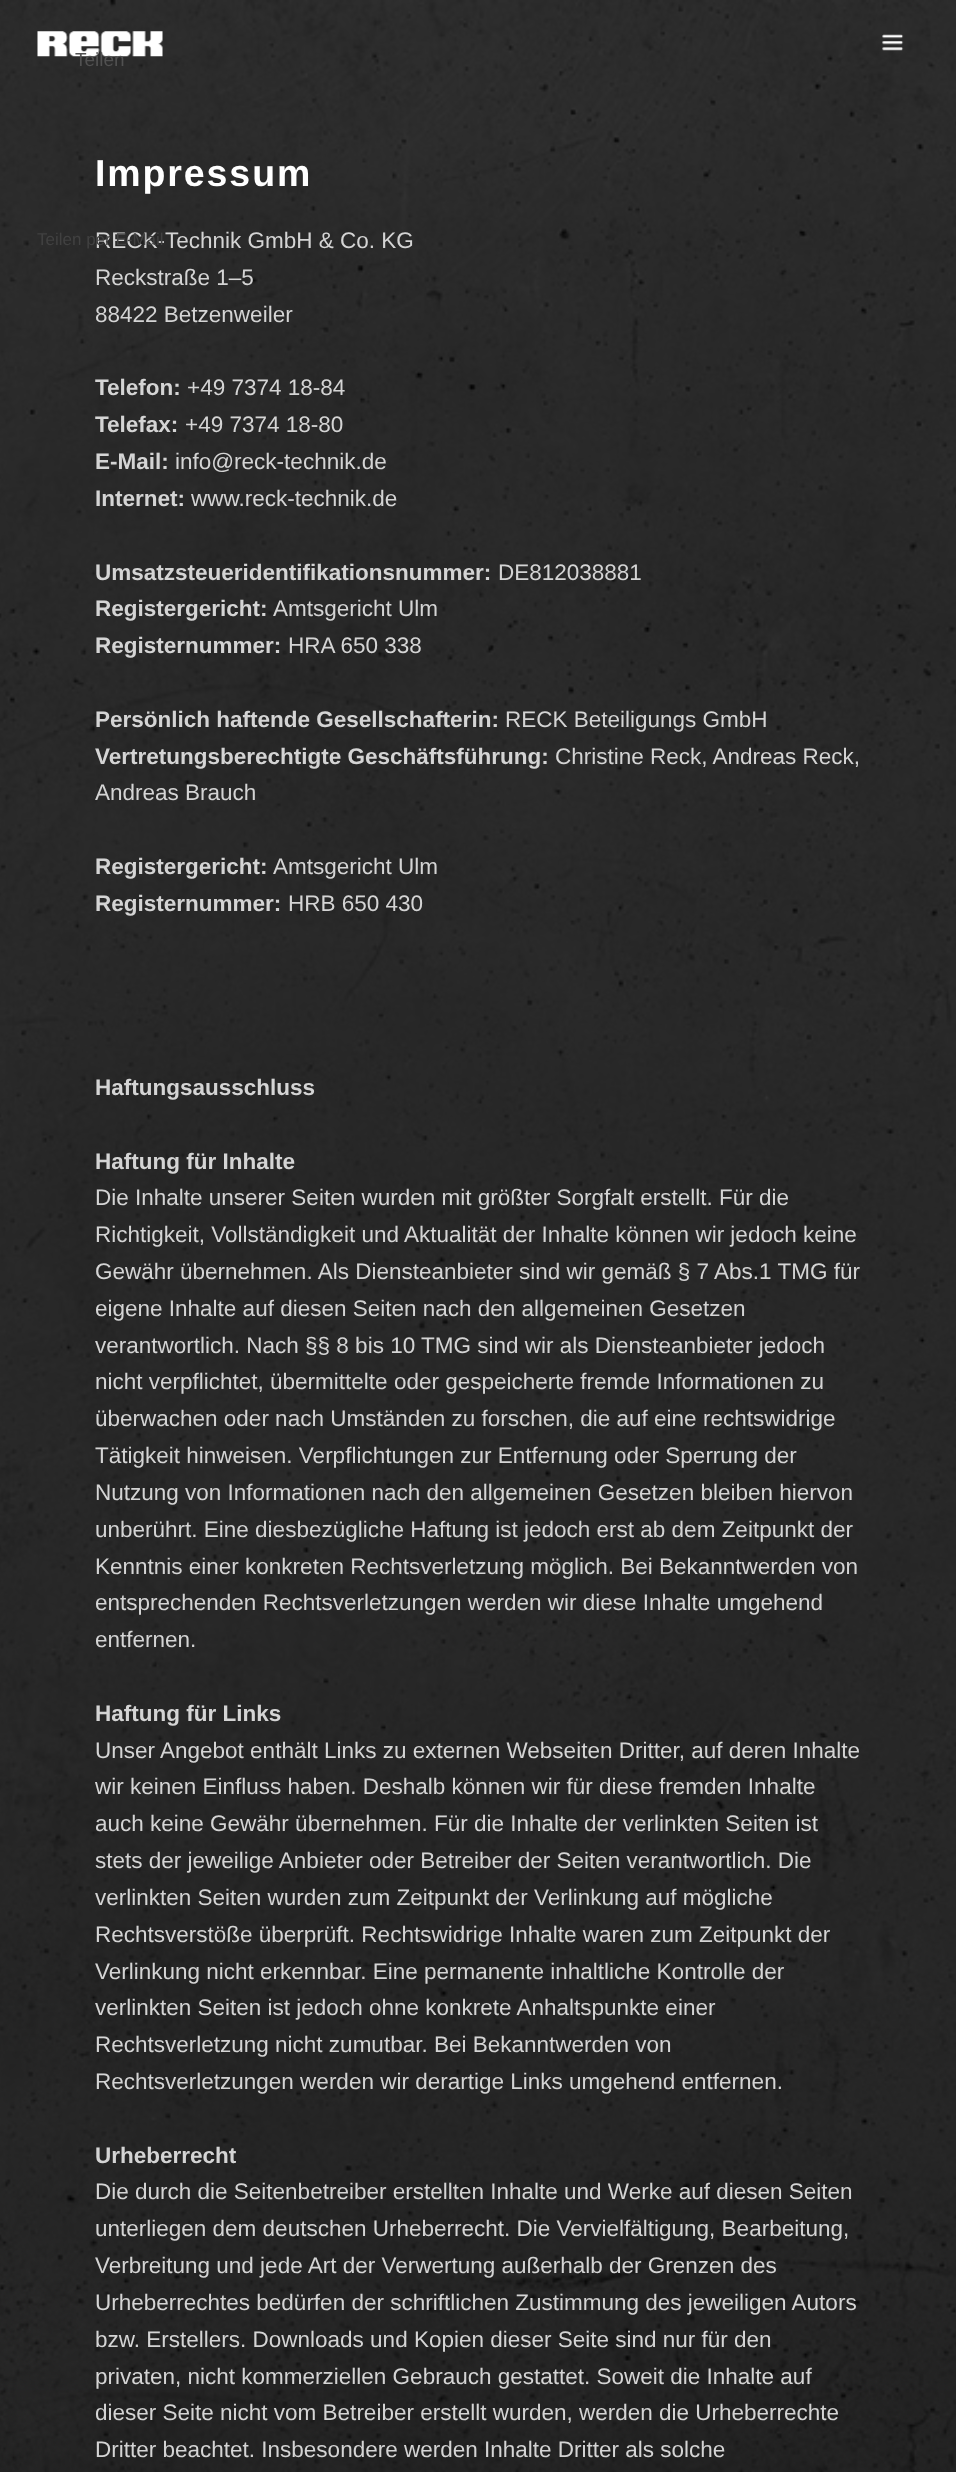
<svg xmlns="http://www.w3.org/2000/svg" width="956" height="2472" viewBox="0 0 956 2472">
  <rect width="100%" height="100%" fill="#fff"/>
  <image x="0" y="0" width="956" height="2472" href="img/3.png"/>
  <image x="37" y="31" width="126" height="26" href="img/1.png"/>
  <image x="882" y="34" width="22" height="17" href="img/2.png"/>
  <text x="75" y="66" font-family="Liberation Sans" font-size="19" fill="#515151">Teilen</text>
  <text x="95" y="186" font-family="Liberation Sans" font-size="37.5" font-weight="bold" letter-spacing="1.9" fill="#fff">Impressum</text>
  <text x="95" y="248" font-family="Liberation Sans" font-size="22.5" fill="#d4d4d4">RECK-Technik GmbH &amp; Co. KG</text>
  <text x="37" y="245" font-family="Liberation Sans" font-size="17" fill="#414141">Teilen per E-Mail</text>
  <g font-family="Liberation Sans" font-size="22.5" fill="#d4d4d4">
    <text x="95" y="285">Reckstraße 1–5</text>
    <text x="95" y="322">88422 Betzenweiler</text>
  </g>
  <text x="95" y="395" font-family="Liberation Sans" font-size="22.5" font-weight="bold" fill="#d4d4d4">Telefon:</text>
  <text x="187" y="395" font-family="Liberation Sans" font-size="22.5" fill="#d4d4d4">+49 7374 18-84</text>
  <text x="95" y="432" font-family="Liberation Sans" font-size="22.5" font-weight="bold" fill="#d4d4d4">Telefax:</text>
  <text x="185" y="432" font-family="Liberation Sans" font-size="22.5" fill="#d4d4d4">+49 7374 18-80</text>
  <text x="95" y="469" font-family="Liberation Sans" font-size="22.5" font-weight="bold" fill="#d4d4d4">E-Mail:</text>
  <text x="175" y="469" font-family="Liberation Sans" font-size="22.5" fill="#d4d4d4">info@reck-technik.de</text>
  <text x="95" y="506" font-family="Liberation Sans" font-size="22.5" font-weight="bold" fill="#d4d4d4">Internet:</text>
  <text x="191" y="506" font-family="Liberation Sans" font-size="22.5" fill="#d4d4d4">www.reck-technik.de</text>
  <text x="95" y="580" font-family="Liberation Sans" font-size="22.5" font-weight="bold" fill="#d4d4d4">Umsatzsteueridentifikationsnummer:</text>
  <text x="498" y="580" font-family="Liberation Sans" font-size="22.5" fill="#d4d4d4">DE812038881</text>
  <text x="95" y="616" font-family="Liberation Sans" font-size="22.5" font-weight="bold" fill="#d4d4d4">Registergericht:</text>
  <text x="273" y="616" font-family="Liberation Sans" font-size="22.5" fill="#d4d4d4">Amtsgericht Ulm</text>
  <text x="95" y="653" font-family="Liberation Sans" font-size="22.5" font-weight="bold" fill="#d4d4d4">Registernummer:</text>
  <text x="288" y="653" font-family="Liberation Sans" font-size="22.5" fill="#d4d4d4">HRA 650 338</text>
  <text x="95" y="727" font-family="Liberation Sans" font-size="22.5" font-weight="bold" fill="#d4d4d4">Persönlich haftende Gesellschafterin:</text>
  <text x="505" y="727" font-family="Liberation Sans" font-size="22.5" fill="#d4d4d4">RECK Beteiligungs GmbH</text>
  <text x="95" y="764" font-family="Liberation Sans" font-size="22.5" font-weight="bold" fill="#d4d4d4">Vertretungsberechtigte Geschäftsführung:</text>
  <g font-family="Liberation Sans" font-size="22.5" fill="#d4d4d4">
    <text x="555" y="764">Christine Reck, Andreas Reck,</text>
    <text x="95" y="800">Andreas Brauch</text>
  </g>
  <text x="95" y="874" font-family="Liberation Sans" font-size="22.5" font-weight="bold" fill="#d4d4d4">Registergericht:</text>
  <text x="273" y="874" font-family="Liberation Sans" font-size="22.5" fill="#d4d4d4">Amtsgericht Ulm</text>
  <text x="95" y="911" font-family="Liberation Sans" font-size="22.5" font-weight="bold" fill="#d4d4d4">Registernummer:</text>
  <text x="288" y="911" font-family="Liberation Sans" font-size="22.5" fill="#d4d4d4">HRB 650 430</text>
  <g font-family="Liberation Sans" font-size="22.5" font-weight="bold" fill="#d4d4d4">
    <text x="95" y="1095">Haftungsausschluss</text>
    <text x="95" y="1169">Haftung für Inhalte</text>
  </g>
  <g font-family="Liberation Sans" font-size="22.5" fill="#d4d4d4">
    <text x="95" y="1205">Die Inhalte unserer Seiten wurden mit größter Sorgfalt erstellt. Für die</text>
    <text x="95" y="1242">Richtigkeit, Vollständigkeit und Aktualität der Inhalte können wir jedoch keine</text>
    <text x="95" y="1279">Gewähr übernehmen. Als Diensteanbieter sind wir gemäß § 7 Abs.1 TMG für</text>
    <text x="95" y="1316">eigene Inhalte auf diesen Seiten nach den allgemeinen Gesetzen</text>
    <text x="95" y="1353">verantwortlich. Nach §§ 8 bis 10 TMG sind wir als Diensteanbieter jedoch</text>
    <text x="95" y="1389">nicht verpflichtet, übermittelte oder gespeicherte fremde Informationen zu</text>
    <text x="95" y="1426">überwachen oder nach Umständen zu forschen, die auf eine rechtswidrige</text>
    <text x="95" y="1463">Tätigkeit hinweisen. Verpflichtungen zur Entfernung oder Sperrung der</text>
    <text x="95" y="1500">Nutzung von Informationen nach den allgemeinen Gesetzen bleiben hiervon</text>
    <text x="95" y="1537">unberührt. Eine diesbezügliche Haftung ist jedoch erst ab dem Zeitpunkt der</text>
    <text x="95" y="1574">Kenntnis einer konkreten Rechtsverletzung möglich. Bei Bekanntwerden von</text>
    <text x="95" y="1610">entsprechenden Rechtsverletzungen werden wir diese Inhalte umgehend</text>
    <text x="95" y="1647">entfernen.</text>
  </g>
  <text x="95" y="1721" font-family="Liberation Sans" font-size="22.5" font-weight="bold" fill="#d4d4d4">Haftung für Links</text>
  <g font-family="Liberation Sans" font-size="22.5" fill="#d4d4d4">
    <text x="95" y="1758">Unser Angebot enthält Links zu externen Webseiten Dritter, auf deren Inhalte</text>
    <text x="95" y="1794">wir keinen Einfluss haben. Deshalb können wir für diese fremden Inhalte</text>
    <text x="95" y="1831">auch keine Gewähr übernehmen. Für die Inhalte der verlinkten Seiten ist</text>
    <text x="95" y="1868">stets der jeweilige Anbieter oder Betreiber der Seiten verantwortlich. Die</text>
    <text x="95" y="1905">verlinkten Seiten wurden zum Zeitpunkt der Verlinkung auf mögliche</text>
    <text x="95" y="1942">Rechtsverstöße überprüft. Rechtswidrige Inhalte waren zum Zeitpunkt der</text>
    <text x="95" y="1979">Verlinkung nicht erkennbar. Eine permanente inhaltliche Kontrolle der</text>
    <text x="95" y="2015">verlinkten Seiten ist jedoch ohne konkrete Anhaltspunkte einer</text>
    <text x="95" y="2052">Rechtsverletzung nicht zumutbar. Bei Bekanntwerden von</text>
    <text x="95" y="2089">Rechtsverletzungen werden wir derartige Links umgehend entfernen.</text>
  </g>
  <text x="95" y="2163" font-family="Liberation Sans" font-size="22.5" font-weight="bold" fill="#d4d4d4">Urheberrecht</text>
  <g font-family="Liberation Sans" font-size="22.5" fill="#d4d4d4">
    <text x="95" y="2199">Die durch die Seitenbetreiber erstellten Inhalte und Werke auf diesen Seiten</text>
    <text x="95" y="2236">unterliegen dem deutschen Urheberrecht. Die Vervielfältigung, Bearbeitung,</text>
    <text x="95" y="2273">Verbreitung und jede Art der Verwertung außerhalb der Grenzen des</text>
    <text x="95" y="2310">Urheberrechtes bedürfen der schriftlichen Zustimmung des jeweiligen Autors</text>
    <text x="95" y="2347">bzw. Erstellers. Downloads und Kopien dieser Seite sind nur für den</text>
    <text x="95" y="2384">privaten, nicht kommerziellen Gebrauch gestattet. Soweit die Inhalte auf</text>
    <text x="95" y="2420">dieser Seite nicht vom Betreiber erstellt wurden, werden die Urheberrechte</text>
    <text x="95" y="2457">Dritter beachtet. Insbesondere werden Inhalte Dritter als solche</text>
  </g>
</svg>
